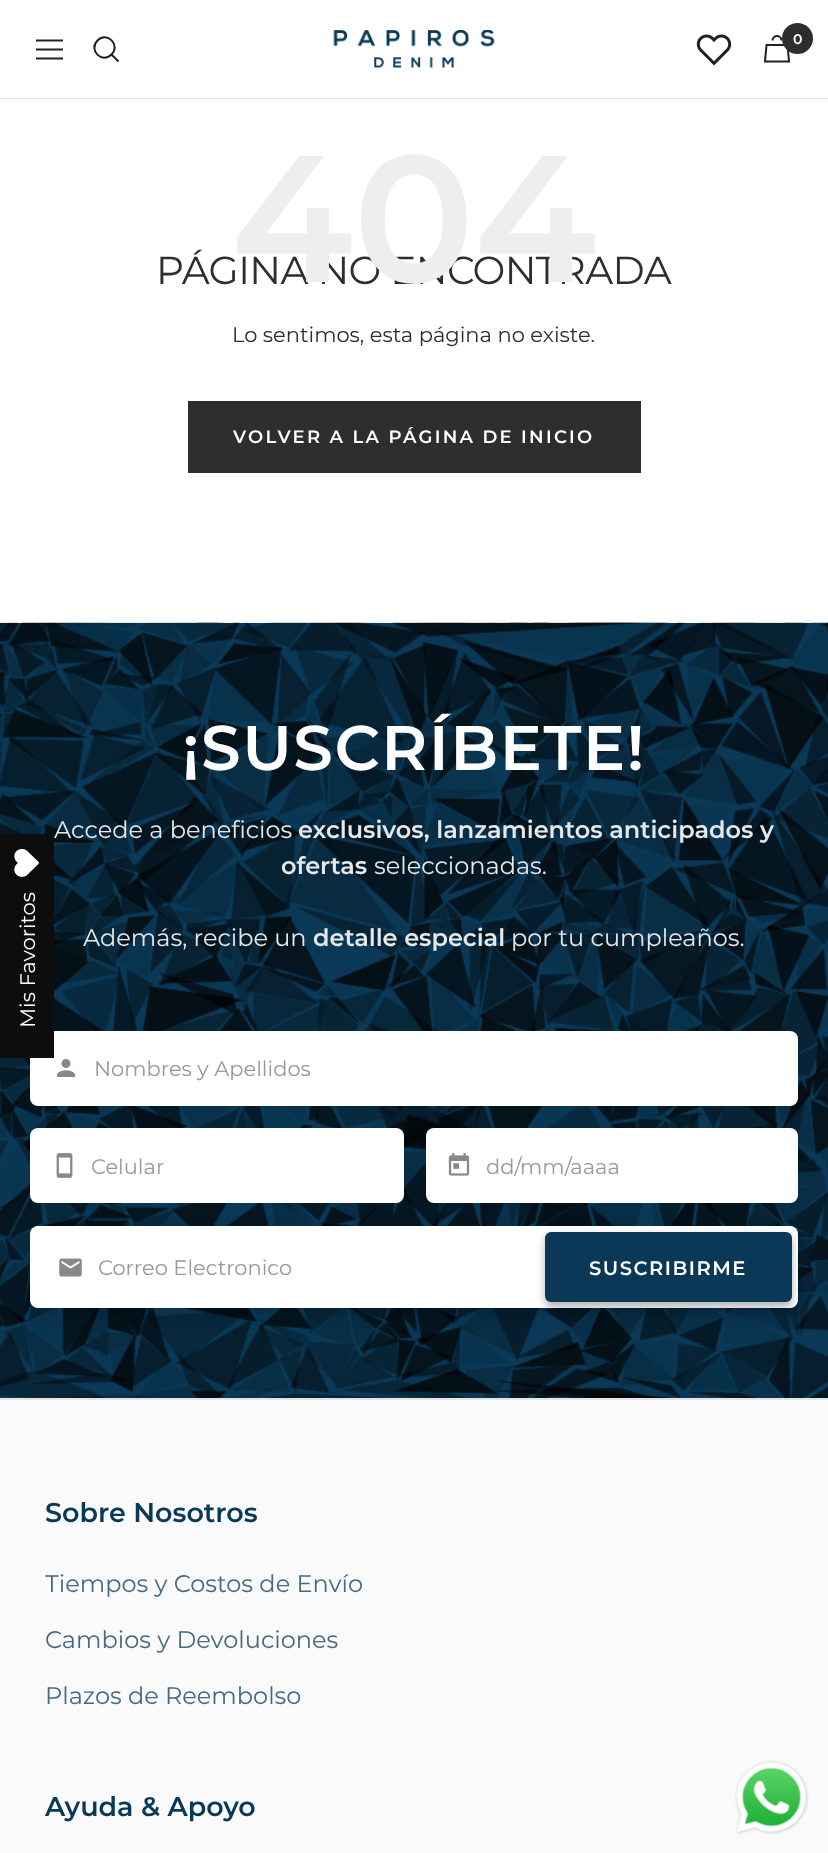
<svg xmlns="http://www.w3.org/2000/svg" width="828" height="1853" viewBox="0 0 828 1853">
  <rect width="100%" height="100%" fill="#fff"/>
  <path d="M0 98h828v1H0z" fill="#e0e0e0"/>
  <path d="M36 40.5H63M36 58.5H63ZM36 49.5H63Z" fill="none" stroke="#212121" stroke-width="2"/>
  <path d="M111.5 54.5C121 45 107 31 97.5 40.5C88 50 102 64 111.5 54.5ZM111.5 54.5L118.5 61.5" fill="none" stroke="#212121" stroke-width="2"/>
  <image x="333" y="30" width="162" height="38" href="img/1.png"/>
  <image x="696" y="34" width="36" height="32" href="img/2.png"/>
  <path d="M766.5 45H787.5L789 61.5H765ZM781.5 40.5C781.5 34.5 772.5 34.5 772.5 40.5" fill="none" stroke="#212121" stroke-width="2"/>
  <circle cx="797.5" cy="38.5" r="15.5" fill="#2e2e2e"/>
  <path d="M188 401h453v72H188z" fill="#2e2e2e"/>
  <path d="M0 623h828v775H0z" fill="#0a3957"/>
  <image x="0" y="622" width="828" height="776" href="img/4.png"/>
  <rect x="30" y="1031" width="768" height="75" rx="8" fill="#fff"/>
  <image x="57" y="1059" width="18" height="18" href="img/5.png"/>
  <rect x="30" y="1128" width="374" height="75" rx="8" fill="#fff"/>
  <image x="56" y="1153" width="17" height="25" href="img/6.png"/>
  <rect x="426" y="1128" width="372" height="75" rx="8" fill="#fff"/>
  <image x="448" y="1153" width="22" height="23" href="img/7.png"/>
  <rect x="30" y="1232" width="768" height="82" rx="8" fill="#00000026" filter="blur(7.5px)"/>
  <rect x="30" y="1226" width="768" height="82" rx="8" fill="#fff"/>
  <image x="59" y="1258" width="23" height="19" href="img/8.png"/>
  <rect x="545" y="1236" width="247" height="71" rx="6" fill="#0000004d" filter="blur(4.5px)"/>
  <rect x="545" y="1232" width="247" height="70" rx="6" fill="#0a3957"/>
  <path d="M0 1398h828v2H0z" fill="#e5e5e5"/>
  <path d="M0 1400h828v453H0z" fill="#fafafa"/>
  <image x="735" y="1760" width="74" height="75" href="img/9.png"/>
  <text x="793" y="44" font-family="montserrat" font-size="14" font-weight="600" fill="#fff">0</text>
  <text x="156" y="284" font-family="Montserrat" font-size="39" letter-spacing="-0.6" fill="#2e2e2e">PÁGINA NO ENCONTRADA</text>
  <text x="231" y="282" font-family="montserrat" font-size="180" font-weight="600" fill="#eee">404</text>
  <text x="232" y="342" font-family="Montserrat" font-size="21" fill="#2e2e2e">Lo sentimos, esta página no existe.</text>
  <text x="233" y="443" font-family="montserrat" font-size="18" font-weight="600" letter-spacing="2.25" fill="#fff">VOLVER A LA PÁGINA DE INICIO</text>
  <text x="182" y="770" font-family="montserrat" font-size="63" font-weight="600" letter-spacing="1.5" fill="#fff">¡SUSCRÍBETE!</text>
  <text x="54" y="838" font-family="Montserrat" font-size="24" fill="#e6e9ea">Accede a beneficios</text>
  <path d="M0 834h54v224H0z" fill="#0d0d0d"/>
  <image x="14" y="848" width="25" height="29" href="img/3.png"/>
  <text x="35" y="1028" transform="rotate(-90 35 1028)" font-family="Montserrat" font-size="21" fill="#fff">Mis Favoritos</text>
  <g font-family="montserrat" font-size="24" font-weight="600" fill="#e6e9ea">
    <text x="298" y="838">exclusivos, lanzamientos anticipados y</text>
    <text x="281" y="874">ofertas</text>
  </g>
  <g font-family="Montserrat" font-size="24" fill="#e6e9ea">
    <text x="374" y="874">seleccionadas.</text>
    <text x="83" y="946">Además, recibe un</text>
  </g>
  <text x="313" y="946" font-family="montserrat" font-size="24" font-weight="600" fill="#e6e9ea">detalle especial</text>
  <text x="511" y="946" font-family="Montserrat" font-size="24" fill="#e6e9ea">por tu cumpleaños.</text>
  <g font-family="Montserrat" font-size="21" fill="#999">
    <text x="94" y="1076">Nombres y Apellidos</text>
    <text x="91" y="1174">Celular</text>
    <text x="486" y="1174">dd/mm/aaaa</text>
    <text x="98" y="1275">Correo Electronico</text>
  </g>
  <text x="589" y="1275" font-family="montserrat" font-size="19.5" font-weight="600" letter-spacing="1.5" fill="#fff">SUSCRIBIRME</text>
  <text x="45" y="1522" font-family="montserrat" font-size="27" font-weight="600" fill="#0a3957">Sobre Nosotros</text>
  <g font-family="Montserrat" font-size="24" fill="#466980">
    <text x="45" y="1592">Tiempos y Costos de Envío</text>
    <text x="45" y="1648">Cambios y Devoluciones</text>
    <text x="45" y="1704">Plazos de Reembolso</text>
  </g>
  <text x="45" y="1816" font-family="montserrat" font-size="27" font-weight="600" fill="#0a3957">Ayuda &amp; Apoyo</text>
</svg>
